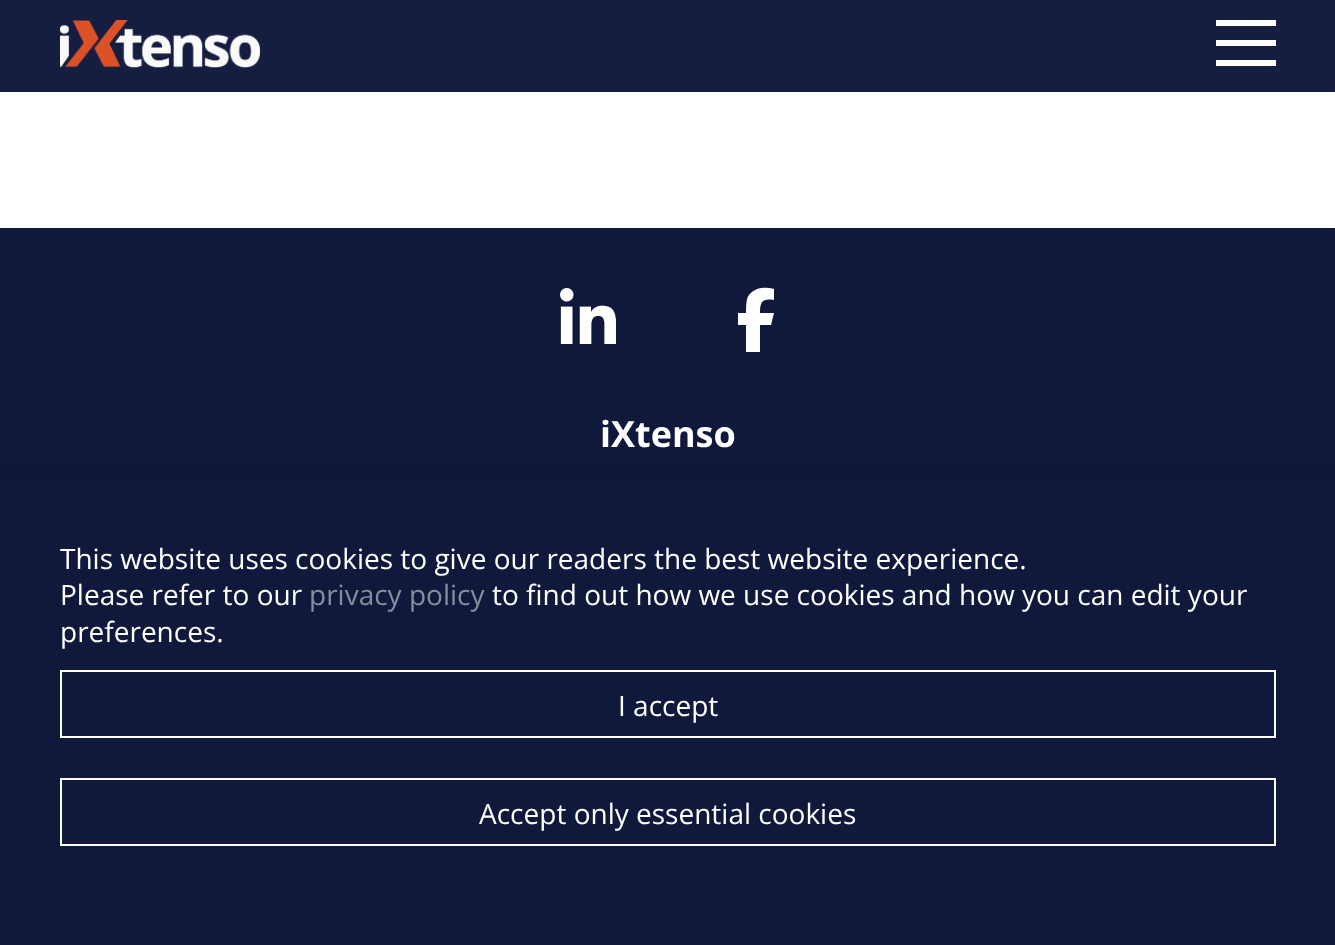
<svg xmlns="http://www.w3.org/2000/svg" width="1335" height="945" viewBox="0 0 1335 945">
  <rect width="100%" height="100%" fill="#fff"/>
  <path d="M0 0h1335v92H0z" fill="#151e40"/>
  <image x="60" y="20" width="200" height="48" href="img/1.png"/>
  <path d="M1216 20h60v6H1216z" fill="#fff"/>
  <path d="M1216 40h60v6H1216z" fill="#fff"/>
  <path d="M1216 60h60v6H1216z" fill="#fff"/>
  <path d="M0 228h1335v252H0z" fill="#10193c"/>
  <image x="560" y="288" width="56" height="56" href="img/2.png"/>
  <path d="M746 325V352V325V352H760V325H771L774 313H760C760 302 762 298 774 300V289C764 286 751 288 747 299C746 304 746 309 746 313H738V325Z" fill="#fff"/>
  <path d="M0 480h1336v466H0z" fill="#0000004d" filter="blur(10px)"/>
  <path d="M0 480h1335v465H0z" fill="#10193c"/>
  <path d="M61 671h1214v66H61z" fill="none" stroke="#fff" stroke-width="2"/>
  <path d="M61 779h1214v66H61z" fill="none" stroke="#fff" stroke-width="2"/>
  <text x="600" y="447" font-family="Open Sans" font-size="36" font-weight="bold" fill="#fff">iXtenso</text>
  <g font-family="Open Sans" font-size="28" fill="#fff">
    <text x="60" y="569">This website uses cookies to give our readers the best website experience.</text>
    <text x="60" y="605">Please refer to our</text>
  </g>
  <text x="309" y="605" font-family="Open Sans" font-size="28" fill="#888c9e">privacy policy</text>
  <g font-family="Open Sans" font-size="28" fill="#fff">
    <text x="492" y="605">to find out how we use cookies and how you can edit your</text>
    <text x="60" y="642">preferences.</text>
    <text x="618" y="716">I accept</text>
    <text x="479" y="824">Accept only essential cookies</text>
  </g>
</svg>
